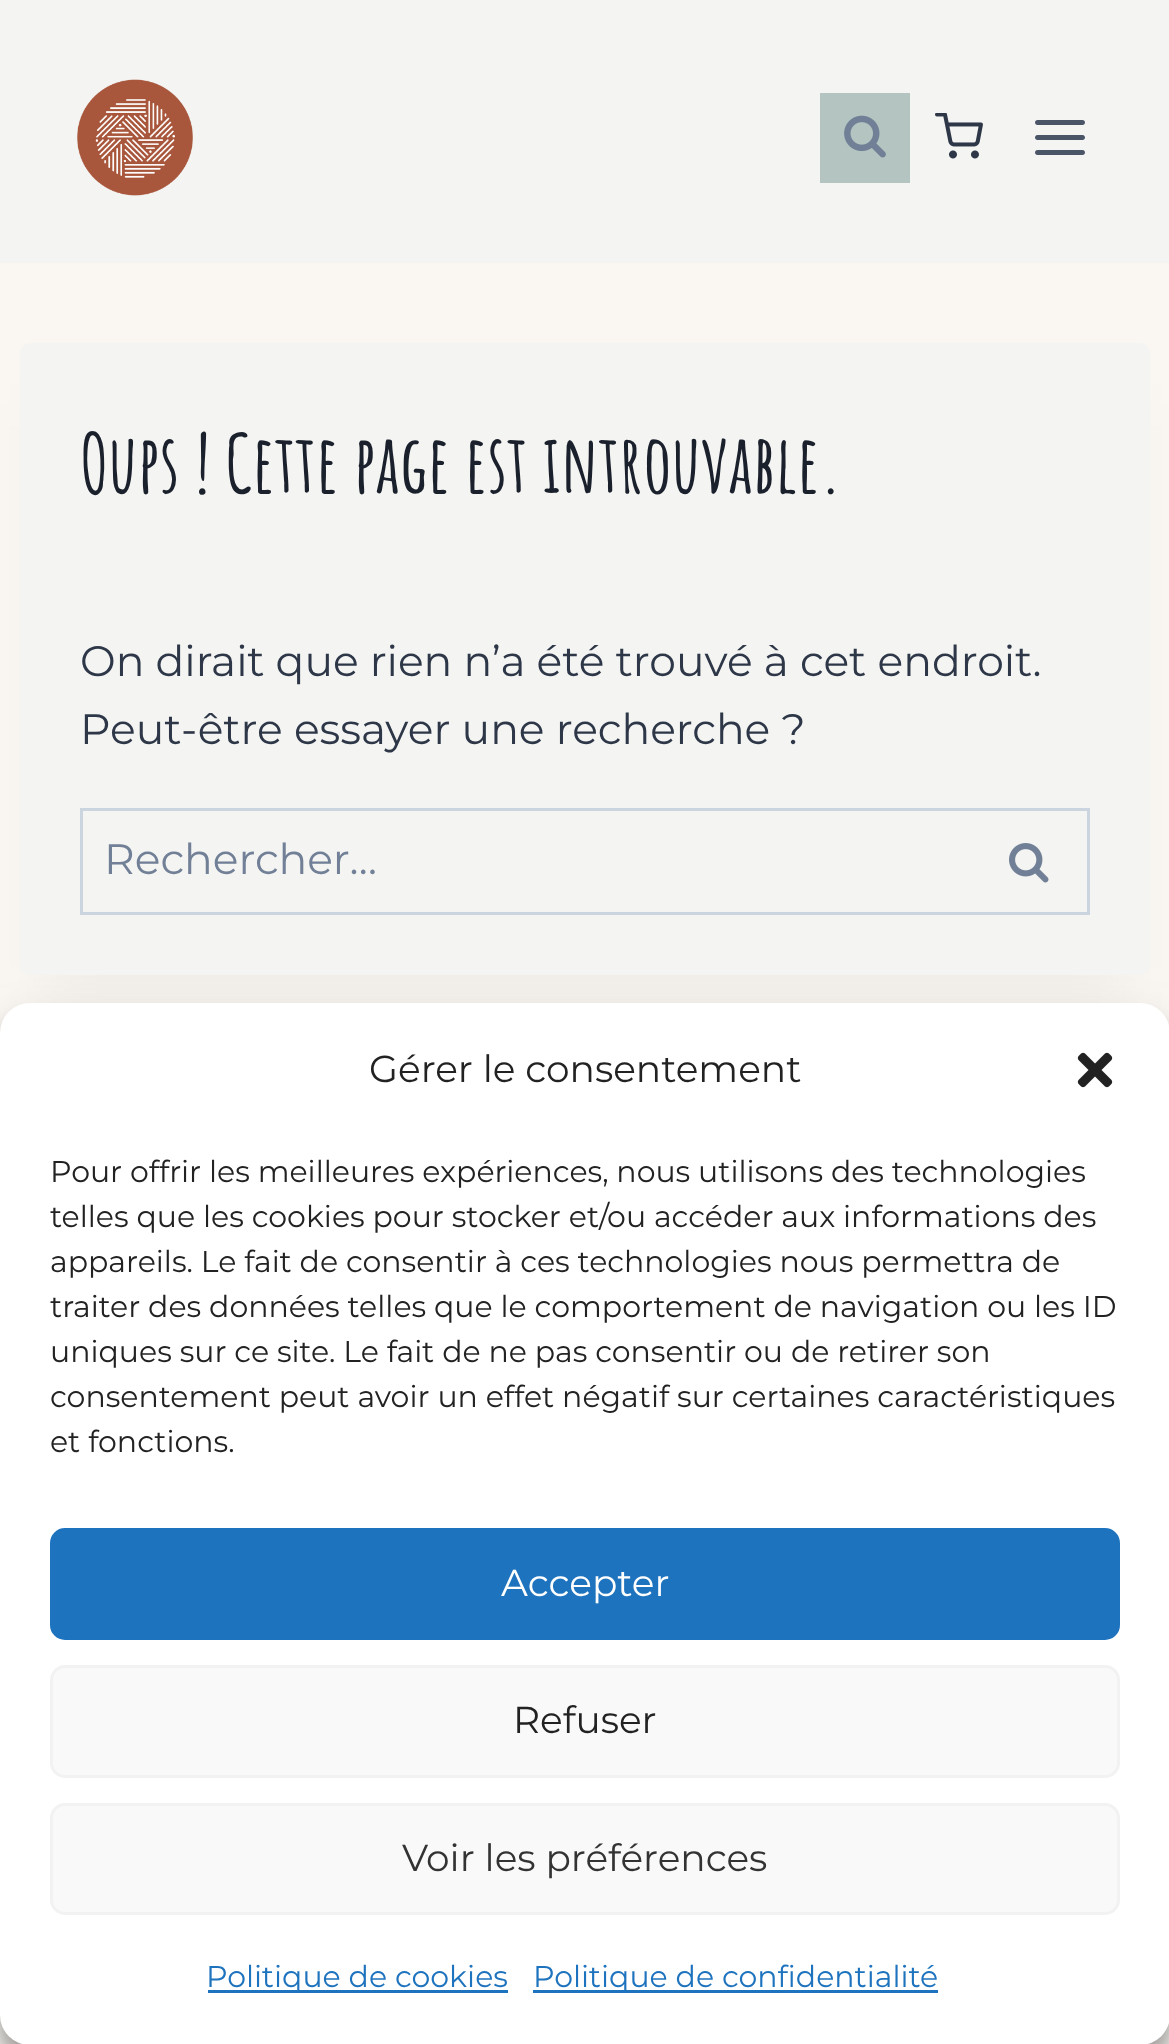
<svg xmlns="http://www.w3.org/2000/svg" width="1169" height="2044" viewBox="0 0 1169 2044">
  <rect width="100%" height="100%" fill="#faf7f3"/>
  <path d="M0 0h1169v263H0z" fill="#f4f4f2"/>
  <image x="77" y="79" width="116" height="117" href="img/1.png"/>
  <path d="M820 93h90v90H820z" fill="#b3c4c1"/>
  <image x="844" y="115" width="42" height="43" href="img/2.png"/>
  <image x="935" y="113" width="48" height="46" href="img/3.png"/>
  <image x="1035" y="120" width="50" height="35" href="img/4.png"/>
  <path d="M45 405h1080v583H45z" fill="#0000000d" filter="blur(31px)"/>
  <rect x="20" y="343" width="1130" height="632" rx="10" fill="#f4f4f2"/>
  <path d="M81.5 809.5h1007v104H81.5z" fill="none" stroke="#cbd5e0" stroke-width="3"/>
  <image x="1009" y="843" width="40" height="40" href="img/5.png"/>
  <rect y="1018" width="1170" height="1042" rx="30" fill="#0000003b" filter="blur(7.5px)"/>
  <rect y="1028" width="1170" height="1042" rx="30" fill="#00000030" filter="blur(25px)"/>
  <rect y="1003" width="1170" height="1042" rx="30" fill="#fff"/>
  <image x="1077" y="1052" width="36" height="36" href="img/6.png"/>
  <rect x="51.5" y="1529.5" width="1067" height="109" rx="13.5" fill="#1e73be" stroke="#1e73be" stroke-width="3"/>
  <rect x="51.5" y="1666.5" width="1067" height="110" rx="13.5" fill="#f9f9f9" stroke="#f2f2f2" stroke-width="3"/>
  <rect x="51.5" y="1804.5" width="1067" height="109" rx="13.5" fill="#f9f9f9" stroke="#f2f2f2" stroke-width="3"/>
  <path d="M208 1990h300v3H208z" fill="#1e73be"/>
  <path d="M533 1990h405v3H533z" fill="#1e73be"/>
  <text x="80" y="493" font-family="Amatic SC" font-size="80" font-weight="bold" fill="#1a202c">Oups ! Cette page est introuvable.</text>
  <g font-family="Montserrat" font-size="42.5" fill="#2d3748">
    <text x="80" y="676">On dirait que rien n’a été trouvé à cet endroit.</text>
    <text x="80" y="744">Peut-être essayer une recherche ?</text>
  </g>
  <text x="104" y="874" font-family="Montserrat" font-size="42.5" fill="#718096">Rechercher…</text>
  <text x="369" y="1082" font-family="Montserrat" font-size="37.5" fill="#222">Gérer le consentement</text>
  <g font-family="Montserrat" font-size="30" fill="#222">
    <text x="50" y="1182">Pour offrir les meilleures expériences, nous utilisons des technologies</text>
    <text x="50" y="1227">telles que les cookies pour stocker et/ou accéder aux informations des</text>
    <text x="50" y="1272">appareils. Le fait de consentir à ces technologies nous permettra de</text>
    <text x="50" y="1317">traiter des données telles que le comportement de navigation ou les ID</text>
    <text x="50" y="1362">uniques sur ce site. Le fait de ne pas consentir ou de retirer son</text>
    <text x="50" y="1407">consentement peut avoir un effet négatif sur certaines caractéristiques</text>
    <text x="50" y="1452">et fonctions.</text>
  </g>
  <text x="501" y="1596" font-family="Montserrat" font-size="37.5" fill="#fff">Accepter</text>
  <text x="513" y="1733" font-family="Montserrat" font-size="37.5" fill="#222">Refuser</text>
  <text x="402" y="1871" font-family="Montserrat" font-size="37.5" fill="#333">Voir les préférences</text>
  <g font-family="Montserrat" font-size="30" fill="#1e73be">
    <text x="206" y="1987">Politique de cookies</text>
    <text x="533" y="1987">Politique de confidentialité</text>
  </g>
</svg>
